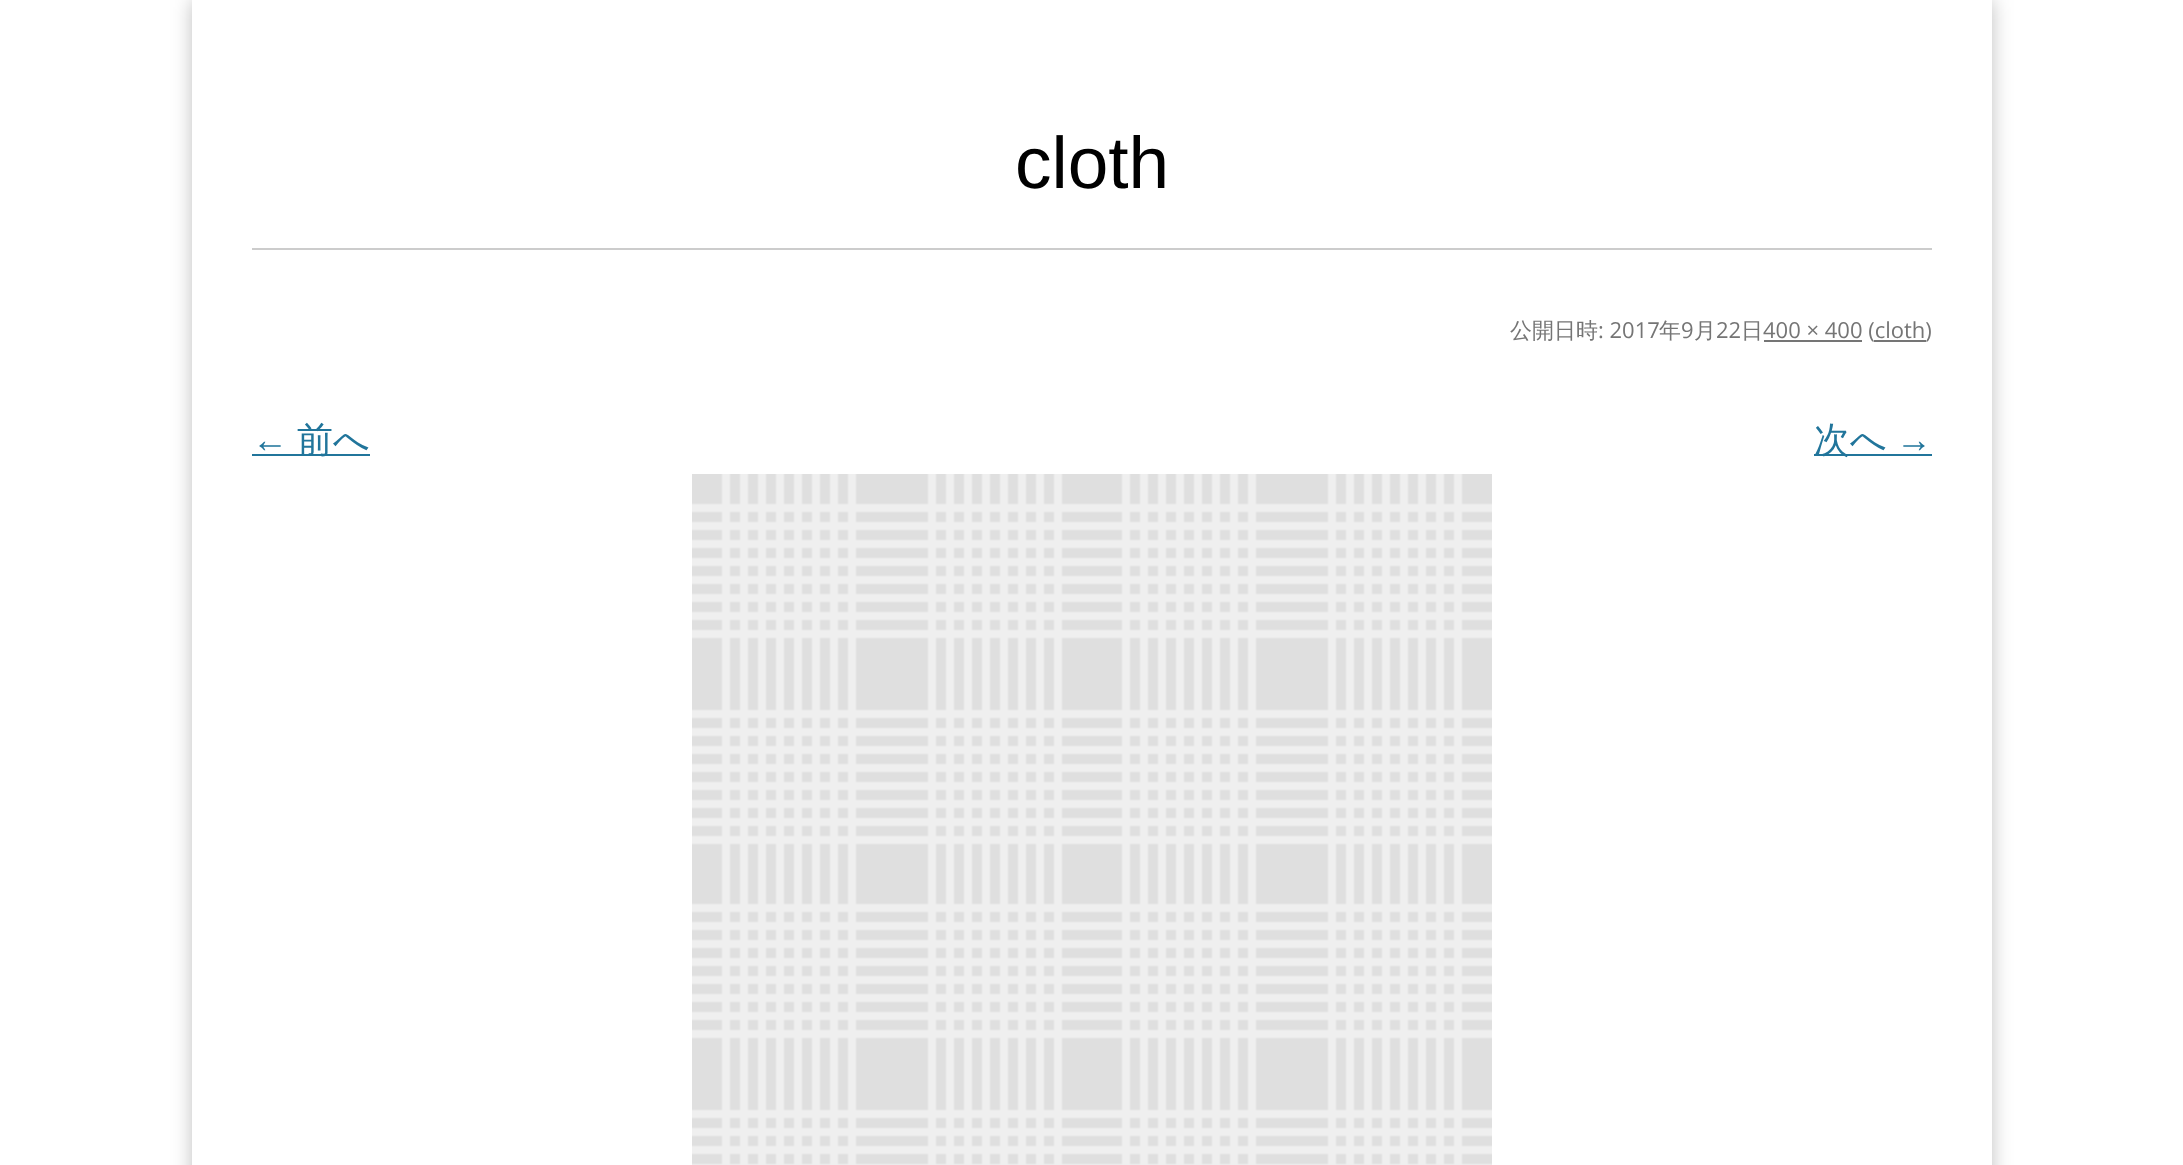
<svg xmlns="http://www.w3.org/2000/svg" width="2183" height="1165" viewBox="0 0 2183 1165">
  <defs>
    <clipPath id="clip1"><path d="M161 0H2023V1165H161ZM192 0H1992V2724H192Z" clip-rule="evenodd"/></clipPath>
  </defs>
  <rect width="100%" height="100%" fill="#fff"/>
  <g clip-path="url(#clip1)">
    <path d="M192 0h1800v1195H192z" fill="#00000040" filter="blur(10px)"/>
  </g>
  <path d="M252 248h1680v2H252z" fill="#ccc"/>
  <path d="M1764 340h98v2H1764z" fill="#757575"/>
  <path d="M1874 340h52v2H1874z" fill="#757575"/>
  <path d="M252 454h118v2H252z" fill="#21759b"/>
  <path d="M1814 454h118v2H1814z" fill="#21759b"/>
  <image x="692" y="474" width="800" height="691" href="img/1.png"/>
  <text x="1015" y="188" font-family="Liberation Sans" font-size="73" fill="#000">cloth</text>
  <text x="1510" y="338" font-family="WenQuanYi Zen Hei" font-size="22" font-weight="500" fill="#757575">公開日時</text>
  <text x="1598" y="338" font-family="Open Sans" font-size="22" fill="#757575">: 2017</text>
  <text x="1659" y="338" font-family="WenQuanYi Zen Hei" font-size="22" font-weight="500" fill="#757575">年</text>
  <text x="1681" y="338" font-family="Open Sans" font-size="22" fill="#757575">9</text>
  <text x="1694" y="338" font-family="WenQuanYi Zen Hei" font-size="22" font-weight="500" fill="#757575">月</text>
  <text x="1716" y="338" font-family="Open Sans" font-size="22" fill="#757575">22</text>
  <text x="1741" y="338" font-family="WenQuanYi Zen Hei" font-size="22" font-weight="500" fill="#757575">日</text>
  <text x="1763" y="338" font-family="Open Sans" font-size="22" fill="#757575">400 × 400 (cloth)</text>
  <text x="252" y="452" font-family="Liberation Sans" font-size="36" fill="#21759b">←</text>
  <g font-family="WenQuanYi Zen Hei" font-size="36" font-weight="500" fill="#21759b">
    <text x="297" y="452">前へ</text>
    <text x="1814" y="452">次へ</text>
  </g>
  <text x="1896" y="452" font-family="Liberation Sans" font-size="36" fill="#21759b">→</text>
</svg>
